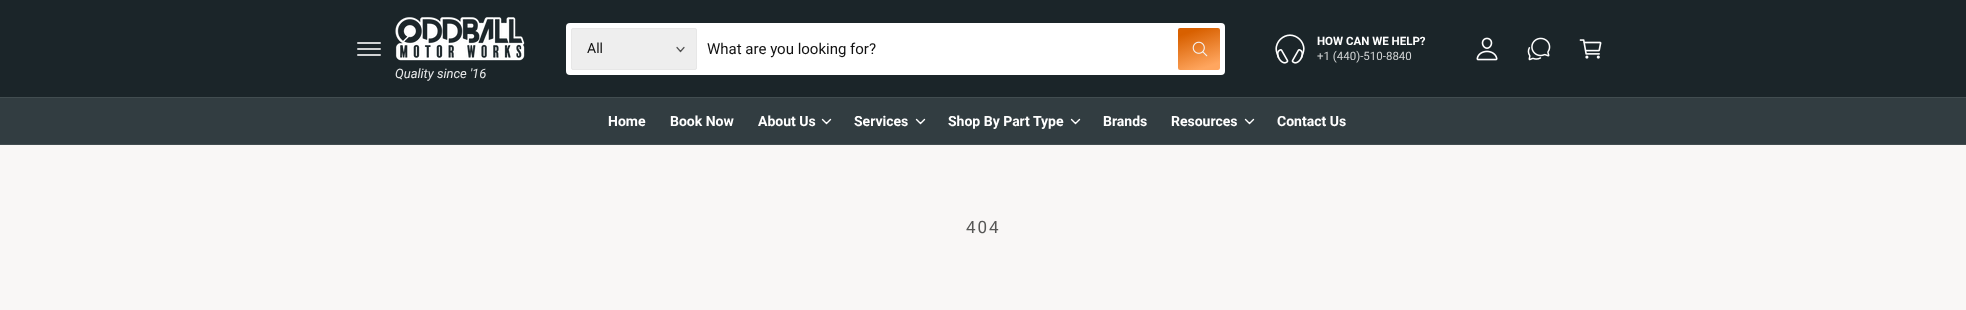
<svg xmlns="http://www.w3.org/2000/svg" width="1966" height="310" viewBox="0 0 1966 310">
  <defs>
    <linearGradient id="g1" gradientUnits="userSpaceOnUse" x1="1208" y1="74" x2="1190" y2="24"><stop offset="0.13" stop-color="#ffa65f"/><stop offset="0.86" stop-color="#d86000"/></linearGradient>
  </defs>
  <rect width="100%" height="100%" fill="#f9f7f6"/>
  <path d="M0 0h1966v97H0z" fill="#1b2529"/>
  <path d="M358 43H380M358 49H380M358 55H380" fill="none" stroke="#d1d3d4" stroke-width="2" stroke-linecap="round"/>
  <rect x="566" y="23" width="659" height="52" rx="4" fill="#fff"/>
  <rect x="571.5" y="28.5" width="125" height="41" rx="1.5" fill="#eee" stroke="#e7e7e7"/>
  <path d="M677 47.5L680.5 51.5L684 47.5" fill="none" stroke="#545454" stroke-width="1.2" stroke-linecap="round" stroke-linejoin="round"/>
  <rect x="1178" y="28" width="42" height="42" rx="2" fill="url(#g1)"/>
  <image x="1192" y="41" width="16" height="16" href="img/1.png"/>
  <image x="1275" y="34" width="30" height="30" href="img/2.png"/>
  <image x="1476" y="37" width="22" height="24" href="img/3.png"/>
  <image x="1527" y="37" width="24" height="24" href="img/4.png"/>
  <image x="1579" y="39" width="23" height="20" href="img/5.png"/>
  <image x="395" y="17" width="130" height="44" href="img/6.png"/>
  <path d="M0 98h1966v46H0z" fill="#323d41"/>
  <path d="M0 97h1966v1H0z" fill="#424d50"/>
  <path d="M0 144h1966v1H0z" fill="#424d50"/>
  <path d="M822.5 119.5L826.5 123.5L830.5 119.5" fill="none" stroke="#fff" stroke-width="1.4" stroke-linecap="round" stroke-linejoin="round"/>
  <path d="M916.5 119.5L920.5 123.5L924.5 119.5" fill="none" stroke="#fff" stroke-width="1.4" stroke-linecap="round" stroke-linejoin="round"/>
  <path d="M1071.5 119.5L1075.5 123.5L1079.5 119.5" fill="none" stroke="#fff" stroke-width="1.4" stroke-linecap="round" stroke-linejoin="round"/>
  <path d="M1245.5 119.5L1249.5 123.5L1253.5 119.5" fill="none" stroke="#fff" stroke-width="1.4" stroke-linecap="round" stroke-linejoin="round"/>
  <text x="587" y="53" font-family="Roboto" font-size="14" fill="#121212">All</text>
  <text x="707" y="54" font-family="Roboto" font-size="15" fill="#121212">What are you looking for?</text>
  <text x="1317" y="45" font-family="Roboto" font-size="11.5" font-weight="bold" fill="#fff">HOW CAN WE HELP?</text>
  <text x="1317" y="60" font-family="Roboto" font-size="11.5" fill="#d1d3d4">+1 (440)-510-8840</text>
  <text x="395" y="78" font-family="Roboto" font-size="13" font-style="italic" fill="#e8e9ea">Quality since '16</text>
  <g font-family="Roboto" font-size="14" font-weight="bold" fill="#fff">
    <text x="608" y="126">Home</text>
    <text x="670" y="126">Book Now</text>
    <text x="758" y="126">About Us</text>
    <text x="854" y="126">Services</text>
    <text x="948" y="126">Shop By Part Type</text>
    <text x="1103" y="126">Brands</text>
    <text x="1171" y="126">Resources</text>
    <text x="1277" y="126">Contact Us</text>
  </g>
  <text x="966" y="233" font-family="Roboto" font-size="17" letter-spacing="2" fill="#575756">404</text>
</svg>
